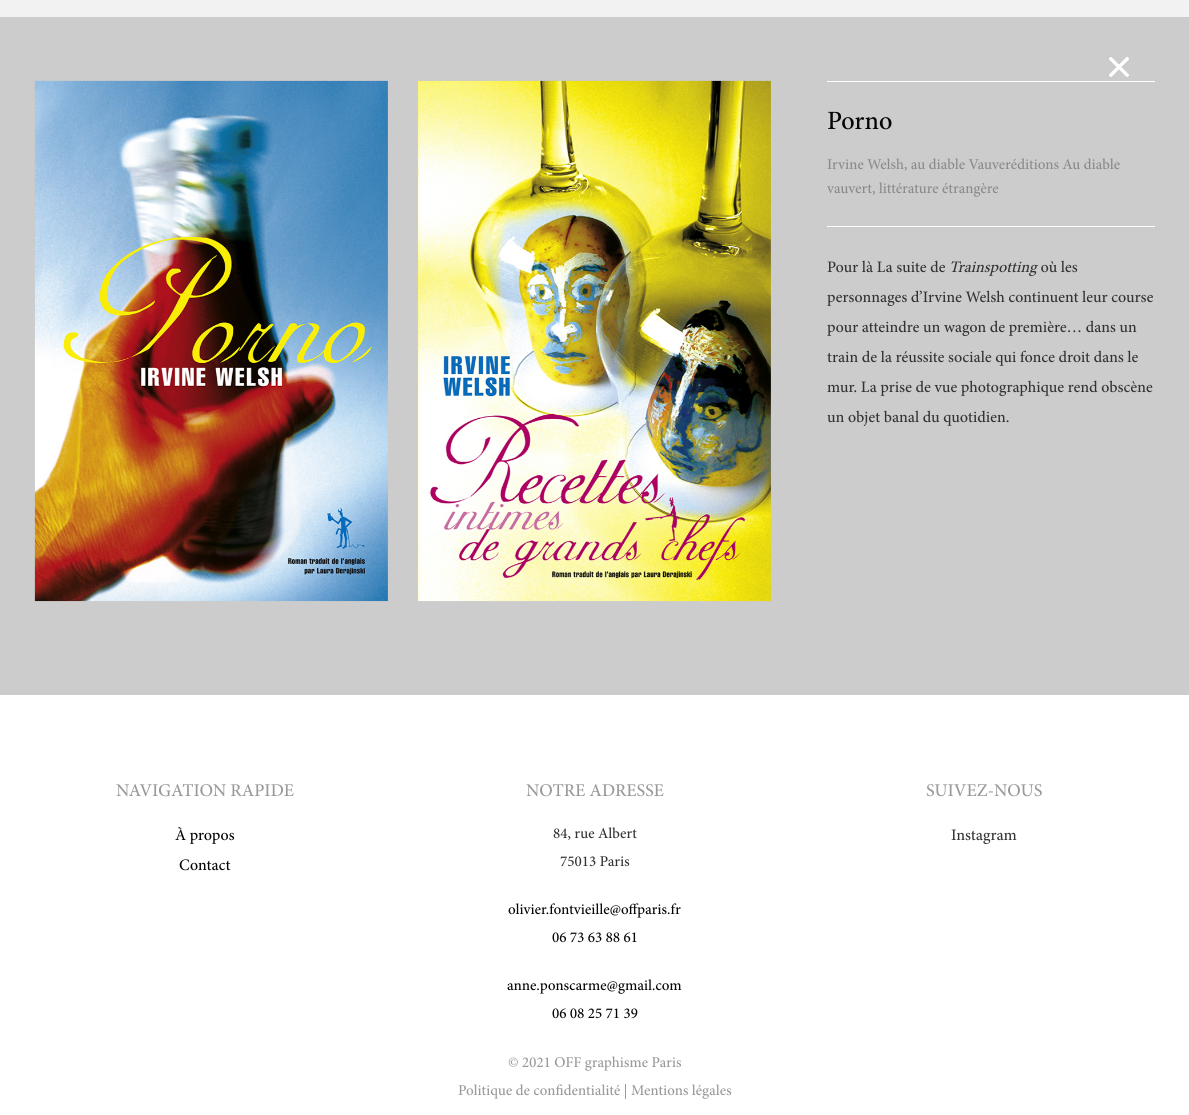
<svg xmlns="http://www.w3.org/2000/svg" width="1189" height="1115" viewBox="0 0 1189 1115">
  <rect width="100%" height="100%" fill="#f2f2f2"/>
  <path d="M0 17h1189v678H0z" fill="#ccc"/>
  <image x="1109" y="57" width="20" height="20" href="img/1.png"/>
  <image x="34" y="80" width="354" height="522" href="img/2.png"/>
  <image x="417" y="80" width="354" height="522" href="img/3.png"/>
  <path d="M827 81h328v1H827z" fill="#fff"/>
  <path d="M827 226h328v1H827z" fill="#fff"/>
  <image x="828" y="111" width="64" height="19" href="img/4.png"/>
  <image x="827" y="158" width="293" height="13" href="img/5.png"/>
  <image x="827" y="182" width="172" height="15" href="img/6.png"/>
  <image x="827" y="260" width="119" height="13" href="img/7.png"/>
  <image x="951" y="261" width="88" height="16" href="img/8.png"/>
  <image x="1041" y="260" width="37" height="13" href="img/9.png"/>
  <image x="827" y="290" width="326" height="17" href="img/10.png"/>
  <image x="827" y="320" width="310" height="17" href="img/11.png"/>
  <image x="827" y="350" width="311" height="16" href="img/12.png"/>
  <image x="827" y="380" width="326" height="17" href="img/13.png"/>
  <image x="827" y="410" width="182" height="16" href="img/14.png"/>
  <path d="M0 695h1189v420H0z" fill="#fff"/>
  <image x="116" y="783" width="178" height="14" href="img/15.png"/>
  <image x="175" y="827" width="60" height="17" href="img/16.png"/>
  <image x="179" y="859" width="52" height="12" href="img/17.png"/>
  <image x="526" y="783" width="138" height="14" href="img/18.png"/>
  <image x="553" y="827" width="84" height="13" href="img/19.png"/>
  <image x="560" y="856" width="70" height="11" href="img/20.png"/>
  <image x="508" y="903" width="173" height="15" href="img/21.png"/>
  <image x="552" y="932" width="85" height="11" href="img/22.png"/>
  <image x="507" y="979" width="175" height="15" href="img/23.png"/>
  <image x="552" y="1008" width="86" height="11" href="img/24.png"/>
  <image x="508" y="1056" width="173" height="15" href="img/25.png"/>
  <image x="458" y="1084" width="162" height="15" href="img/26.png"/>
  <path d="M625 1084h1v15H625z" fill="#999"/>
  <image x="631" y="1084" width="101" height="15" href="img/27.png"/>
  <image x="926" y="783" width="116" height="14" href="img/28.png"/>
  <image x="951" y="829" width="66" height="16" href="img/29.png"/>
</svg>
